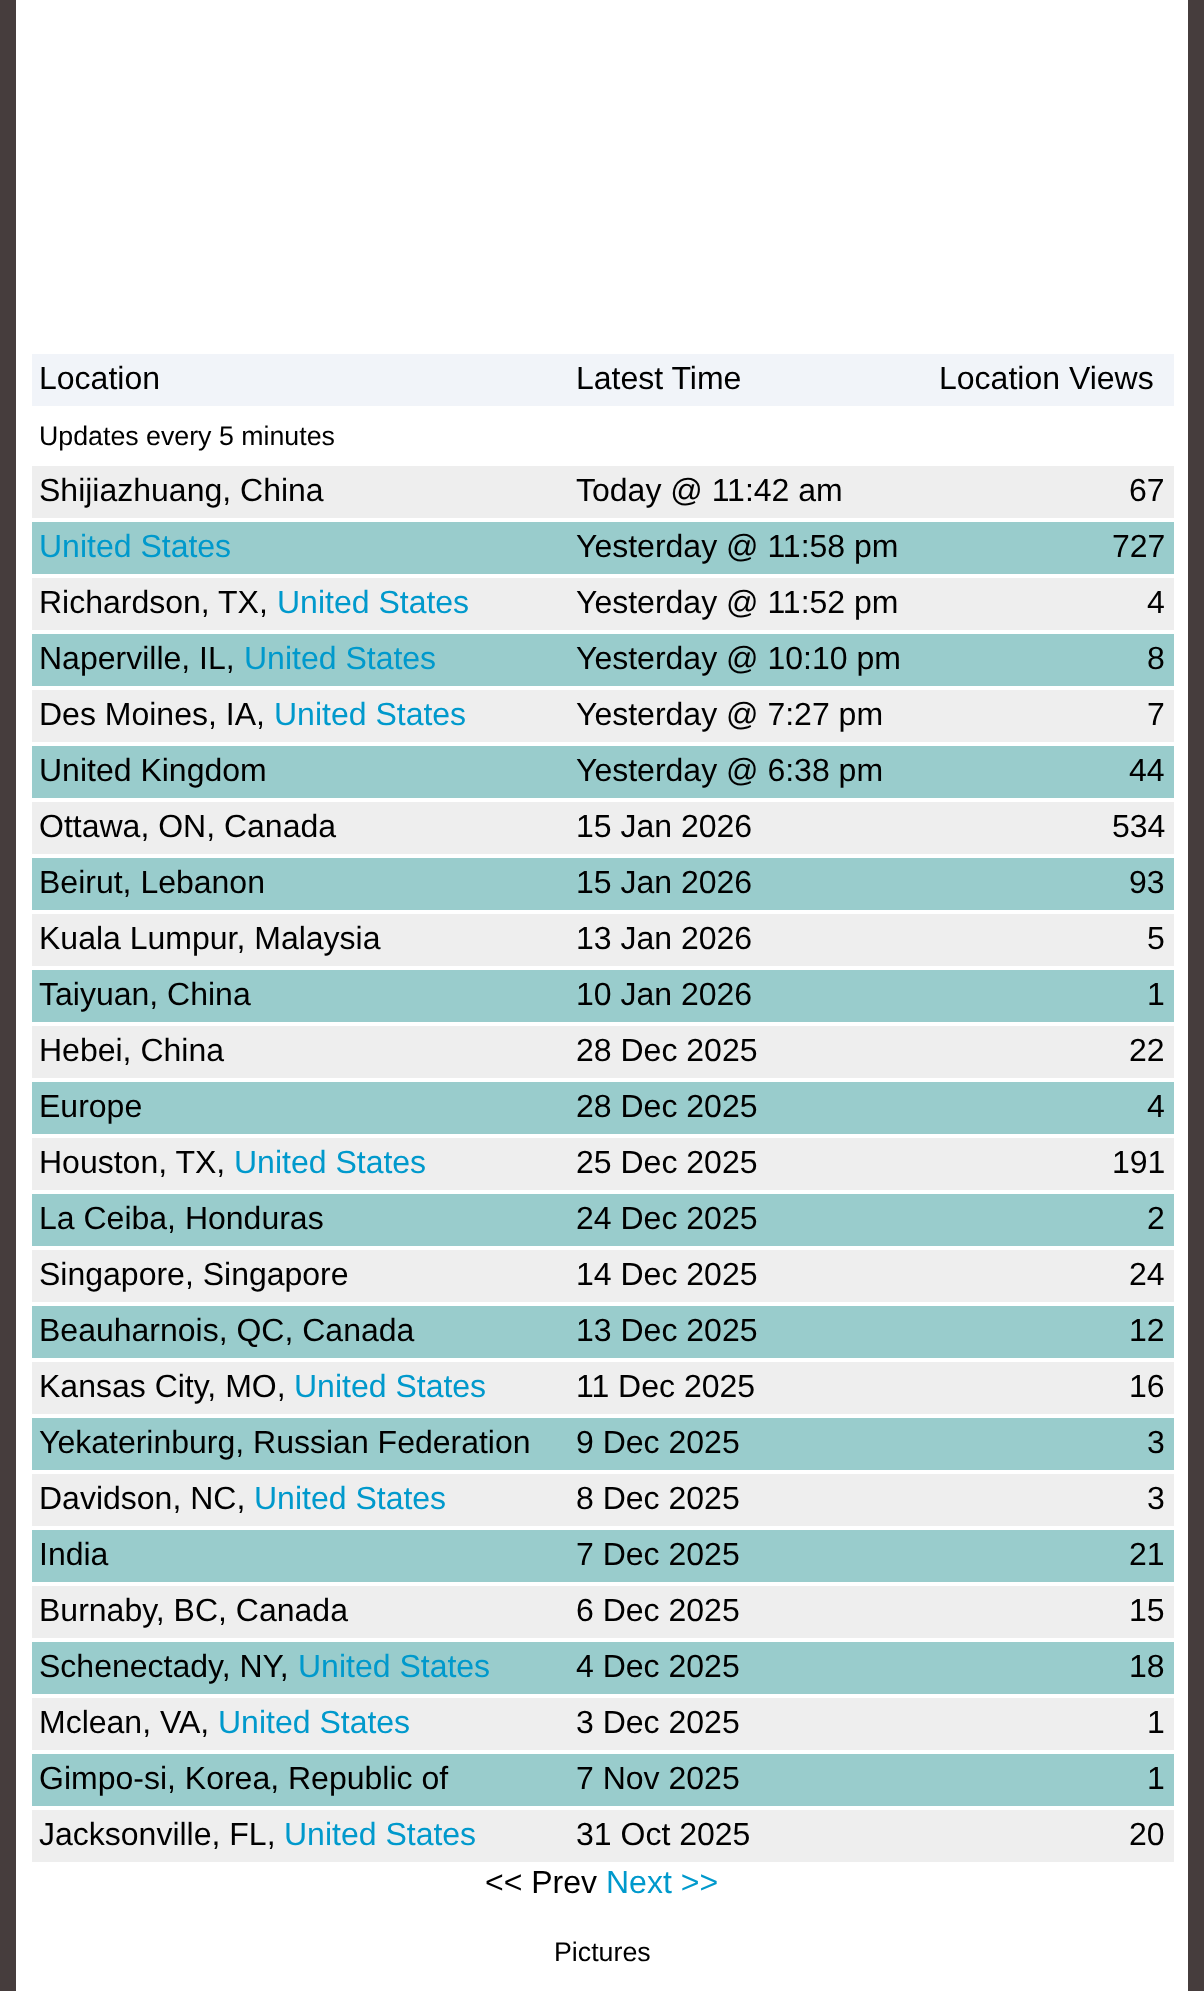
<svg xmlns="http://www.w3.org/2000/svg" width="1204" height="1991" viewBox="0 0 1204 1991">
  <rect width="100%" height="100%" fill="#463d3d"/>
  <path d="M16 0h1172v1991H16z" fill="#fff"/>
  <path d="M32 354h1142v52H32z" fill="#f1f4f9"/>
  <path d="M32 466h1142v52H32z" fill="#eee"/>
  <path d="M32 522h1142v52H32z" fill="#9cc"/>
  <path d="M32 578h1142v52H32z" fill="#eee"/>
  <path d="M32 634h1142v52H32z" fill="#9cc"/>
  <path d="M32 690h1142v52H32z" fill="#eee"/>
  <path d="M32 746h1142v52H32z" fill="#9cc"/>
  <path d="M32 802h1142v52H32z" fill="#eee"/>
  <path d="M32 858h1142v52H32z" fill="#9cc"/>
  <path d="M32 914h1142v52H32z" fill="#eee"/>
  <path d="M32 970h1142v52H32z" fill="#9cc"/>
  <path d="M32 1026h1142v52H32z" fill="#eee"/>
  <path d="M32 1082h1142v52H32z" fill="#9cc"/>
  <path d="M32 1138h1142v52H32z" fill="#eee"/>
  <path d="M32 1194h1142v52H32z" fill="#9cc"/>
  <path d="M32 1250h1142v52H32z" fill="#eee"/>
  <path d="M32 1306h1142v52H32z" fill="#9cc"/>
  <path d="M32 1362h1142v52H32z" fill="#eee"/>
  <path d="M32 1418h1142v52H32z" fill="#9cc"/>
  <path d="M32 1474h1142v52H32z" fill="#eee"/>
  <path d="M32 1530h1142v52H32z" fill="#9cc"/>
  <path d="M32 1586h1142v52H32z" fill="#eee"/>
  <path d="M32 1642h1142v52H32z" fill="#9cc"/>
  <path d="M32 1698h1142v52H32z" fill="#eee"/>
  <path d="M32 1754h1142v52H32z" fill="#9cc"/>
  <path d="M32 1810h1142v52H32z" fill="#eee"/>
  <g font-family="Liberation Sans" font-size="32" fill="#000">
    <text x="39" y="389">Location</text>
    <text x="576" y="389">Latest Time</text>
    <text x="939" y="389">Location Views</text>
  </g>
  <text x="39" y="445" font-family="Liberation Sans" font-size="26.75" fill="#000">Updates every 5 minutes</text>
  <g font-family="Liberation Sans" font-size="32" fill="#000">
    <text x="39" y="501">Shijiazhuang, China</text>
    <text x="576" y="501">Today @ 11:42 am</text>
    <text x="1129" y="501">67</text>
  </g>
  <text x="39" y="557" font-family="Liberation Sans" font-size="32" fill="#09c">United States</text>
  <g font-family="Liberation Sans" font-size="32" fill="#000">
    <text x="576" y="557">Yesterday @ 11:58 pm</text>
    <text x="1112" y="557">727</text>
    <text x="39" y="613">Richardson, TX,</text>
  </g>
  <text x="277" y="613" font-family="Liberation Sans" font-size="32" fill="#09c">United States</text>
  <g font-family="Liberation Sans" font-size="32" fill="#000">
    <text x="576" y="613">Yesterday @ 11:52 pm</text>
    <text x="1147" y="613">4</text>
    <text x="39" y="669">Naperville, IL,</text>
  </g>
  <text x="244" y="669" font-family="Liberation Sans" font-size="32" fill="#09c">United States</text>
  <g font-family="Liberation Sans" font-size="32" fill="#000">
    <text x="576" y="669">Yesterday @ 10:10 pm</text>
    <text x="1147" y="669">8</text>
    <text x="39" y="725">Des Moines, IA,</text>
  </g>
  <text x="274" y="725" font-family="Liberation Sans" font-size="32" fill="#09c">United States</text>
  <g font-family="Liberation Sans" font-size="32" fill="#000">
    <text x="576" y="725">Yesterday @ 7:27 pm</text>
    <text x="1147" y="725">7</text>
    <text x="39" y="781">United Kingdom</text>
    <text x="576" y="781">Yesterday @ 6:38 pm</text>
    <text x="1129" y="781">44</text>
    <text x="39" y="837">Ottawa, ON, Canada</text>
    <text x="576" y="837">15 Jan 2026</text>
    <text x="1112" y="837">534</text>
    <text x="39" y="893">Beirut, Lebanon</text>
    <text x="576" y="893">15 Jan 2026</text>
    <text x="1129" y="893">93</text>
    <text x="39" y="949">Kuala Lumpur, Malaysia</text>
    <text x="576" y="949">13 Jan 2026</text>
    <text x="1147" y="949">5</text>
    <text x="39" y="1005">Taiyuan, China</text>
    <text x="576" y="1005">10 Jan 2026</text>
    <text x="1147" y="1005">1</text>
    <text x="39" y="1061">Hebei, China</text>
    <text x="576" y="1061">28 Dec 2025</text>
    <text x="1129" y="1061">22</text>
    <text x="39" y="1117">Europe</text>
    <text x="576" y="1117">28 Dec 2025</text>
    <text x="1147" y="1117">4</text>
    <text x="39" y="1173">Houston, TX,</text>
  </g>
  <text x="234" y="1173" font-family="Liberation Sans" font-size="32" fill="#09c">United States</text>
  <g font-family="Liberation Sans" font-size="32" fill="#000">
    <text x="576" y="1173">25 Dec 2025</text>
    <text x="1112" y="1173">191</text>
    <text x="39" y="1229">La Ceiba, Honduras</text>
    <text x="576" y="1229">24 Dec 2025</text>
    <text x="1147" y="1229">2</text>
    <text x="39" y="1285">Singapore, Singapore</text>
    <text x="576" y="1285">14 Dec 2025</text>
    <text x="1129" y="1285">24</text>
    <text x="39" y="1341">Beauharnois, QC, Canada</text>
    <text x="576" y="1341">13 Dec 2025</text>
    <text x="1129" y="1341">12</text>
    <text x="39" y="1397">Kansas City, MO,</text>
  </g>
  <text x="294" y="1397" font-family="Liberation Sans" font-size="32" fill="#09c">United States</text>
  <g font-family="Liberation Sans" font-size="32" fill="#000">
    <text x="576" y="1397">11 Dec 2025</text>
    <text x="1129" y="1397">16</text>
    <text x="39" y="1453">Yekaterinburg, Russian Federation</text>
    <text x="576" y="1453">9 Dec 2025</text>
    <text x="1147" y="1453">3</text>
    <text x="39" y="1509">Davidson, NC,</text>
  </g>
  <text x="254" y="1509" font-family="Liberation Sans" font-size="32" fill="#09c">United States</text>
  <g font-family="Liberation Sans" font-size="32" fill="#000">
    <text x="576" y="1509">8 Dec 2025</text>
    <text x="1147" y="1509">3</text>
    <text x="39" y="1565">India</text>
    <text x="576" y="1565">7 Dec 2025</text>
    <text x="1129" y="1565">21</text>
    <text x="39" y="1621">Burnaby, BC, Canada</text>
    <text x="576" y="1621">6 Dec 2025</text>
    <text x="1129" y="1621">15</text>
    <text x="39" y="1677">Schenectady, NY,</text>
  </g>
  <text x="298" y="1677" font-family="Liberation Sans" font-size="32" fill="#09c">United States</text>
  <g font-family="Liberation Sans" font-size="32" fill="#000">
    <text x="576" y="1677">4 Dec 2025</text>
    <text x="1129" y="1677">18</text>
    <text x="39" y="1733">Mclean, VA,</text>
  </g>
  <text x="218" y="1733" font-family="Liberation Sans" font-size="32" fill="#09c">United States</text>
  <g font-family="Liberation Sans" font-size="32" fill="#000">
    <text x="576" y="1733">3 Dec 2025</text>
    <text x="1147" y="1733">1</text>
    <text x="39" y="1789">Gimpo-si, Korea, Republic of</text>
    <text x="576" y="1789">7 Nov 2025</text>
    <text x="1147" y="1789">1</text>
    <text x="39" y="1845">Jacksonville, FL,</text>
  </g>
  <text x="284" y="1845" font-family="Liberation Sans" font-size="32" fill="#09c">United States</text>
  <g font-family="Liberation Sans" font-size="32" fill="#000">
    <text x="576" y="1845">31 Oct 2025</text>
    <text x="1129" y="1845">20</text>
    <text x="485" y="1893">&lt;&lt; Prev</text>
  </g>
  <text x="606" y="1893" font-family="Liberation Sans" font-size="32" fill="#09c">Next &gt;&gt;</text>
  <text x="554" y="1961" font-family="Liberation Sans" font-size="26.75" fill="#000">Pictures</text>
</svg>
